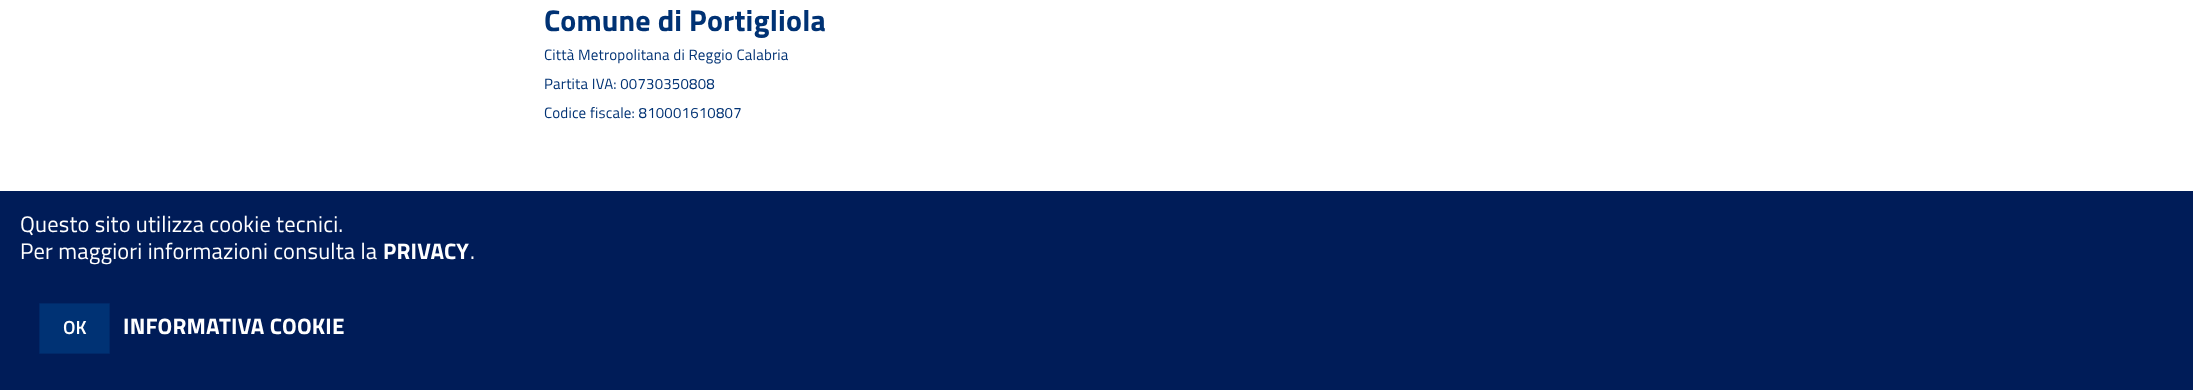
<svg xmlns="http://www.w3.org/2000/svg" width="2193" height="390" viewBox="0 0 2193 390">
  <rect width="100%" height="100%" fill="#fff"/>
  <path d="M0 191h2193v199H0z" fill="#001c58"/>
  <path d="M39.5 303.5h70v50H39.5z" fill="#003274" stroke="#002969"/>
  <text x="544" y="31" font-family="Titillium Web" font-size="30" font-weight="bold" letter-spacing="0.2" fill="#003274">Comune di Portigliola</text>
  <g font-family="Titillium Web" font-size="15" letter-spacing="0.2" fill="#003274">
    <text x="544" y="60">Città Metropolitana di Reggio Calabria</text>
    <text x="544" y="89">Partita IVA: 00730350808</text>
    <text x="544" y="118">Codice fiscale: 810001610807</text>
  </g>
  <g font-family="Titillium Web" font-size="22.5" letter-spacing="0.2" fill="#fff">
    <text x="20" y="232">Questo sito utilizza cookie tecnici.</text>
    <text x="20" y="259">Per maggiori informazioni consulta la</text>
  </g>
  <text x="383" y="259" font-family="Titillium Web" font-size="22.5" font-weight="bold" letter-spacing="0.2" fill="#fff">PRIVACY</text>
  <text x="470" y="259" font-family="Titillium Web" font-size="22.5" letter-spacing="0.2" fill="#fff">.</text>
  <text x="63" y="334" font-family="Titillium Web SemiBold" font-size="19" font-weight="600" fill="#fff">OK</text>
  <text x="123" y="334" font-family="Titillium Web" font-size="22.5" font-weight="bold" letter-spacing="0.2" fill="#fff">INFORMATIVA COOKIE</text>
</svg>
